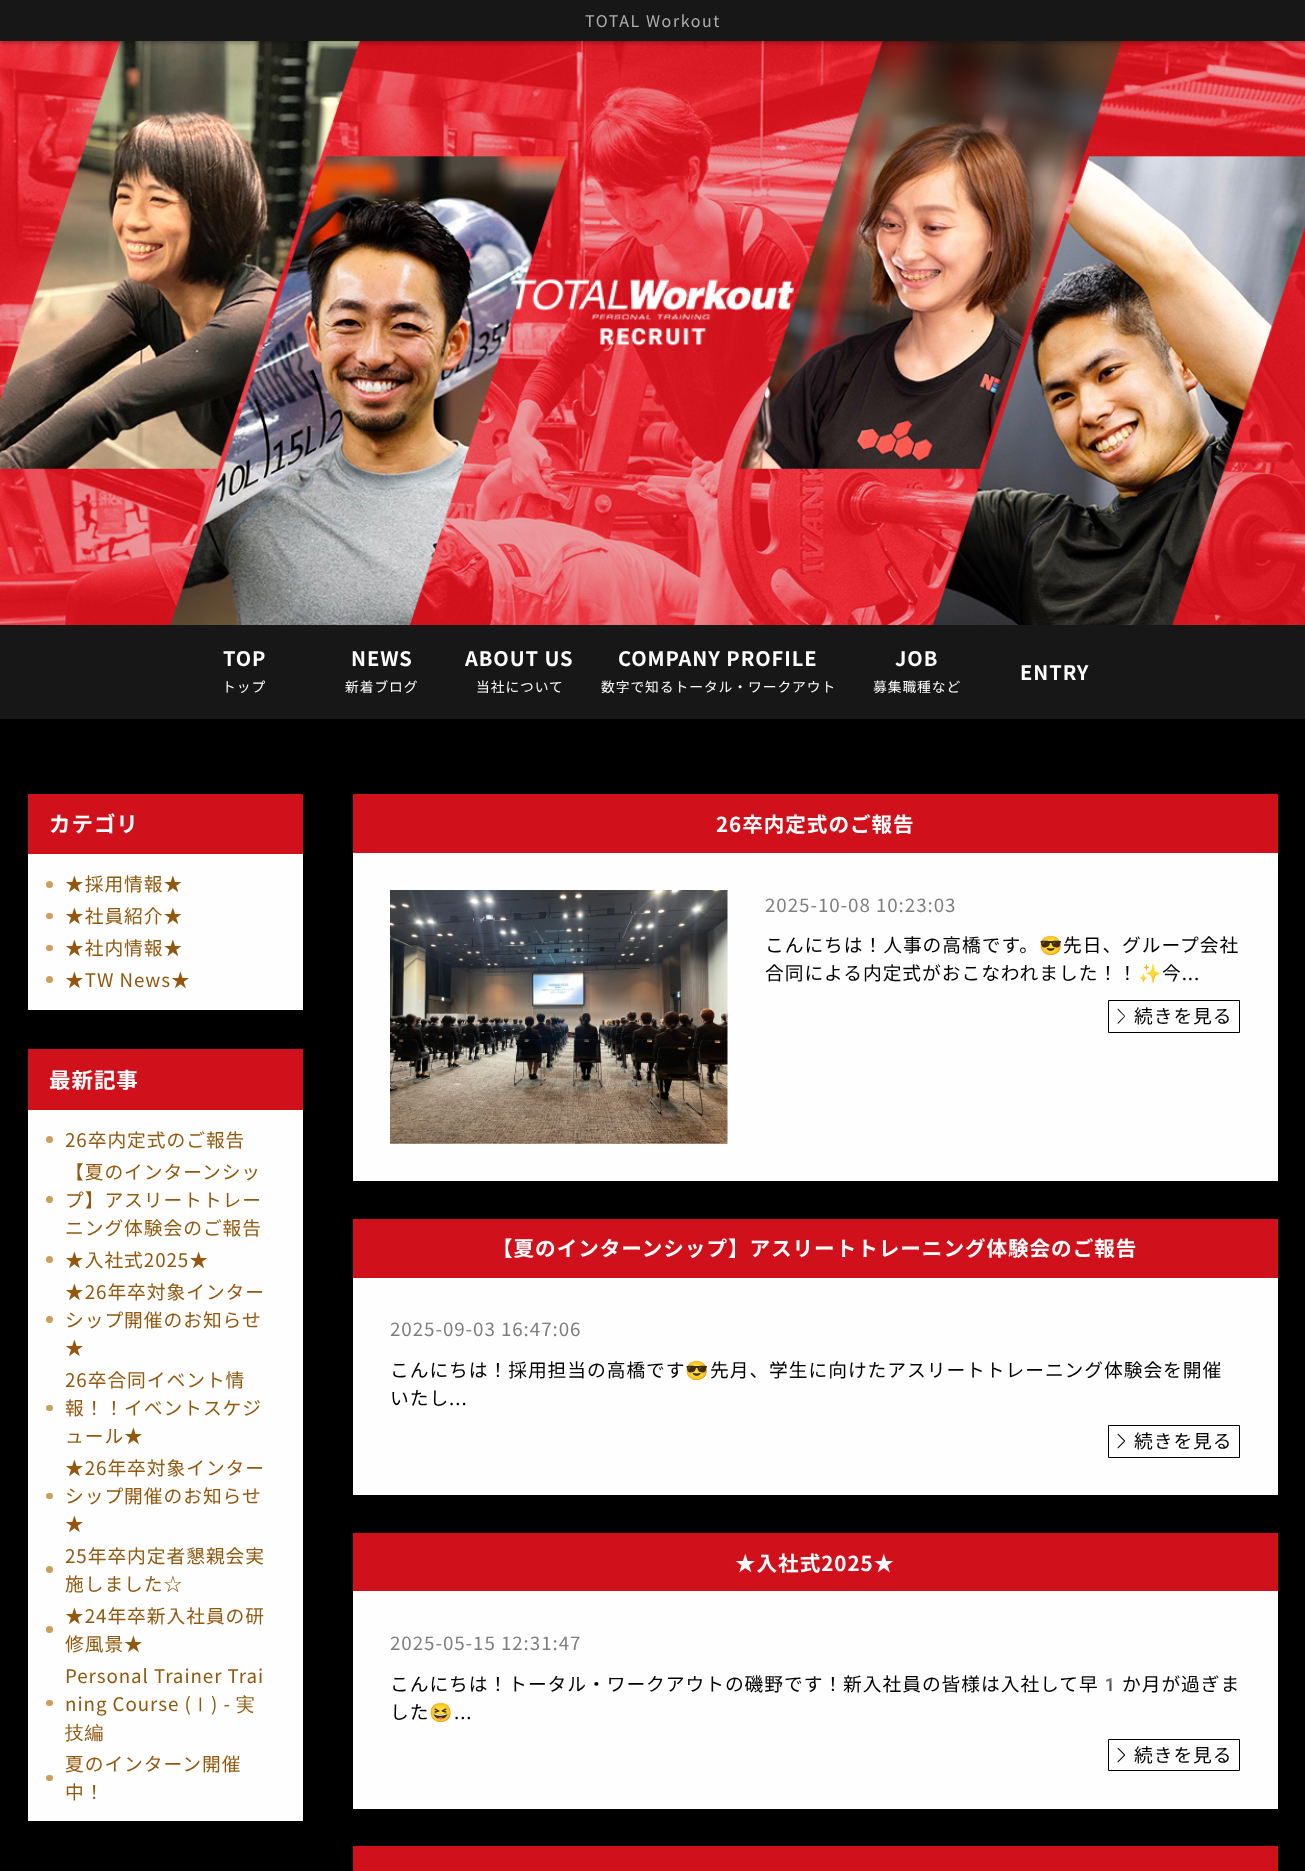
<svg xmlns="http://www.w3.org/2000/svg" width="1305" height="1871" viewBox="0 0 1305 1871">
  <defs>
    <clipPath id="clip1"><path d="M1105 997H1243V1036H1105ZM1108 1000H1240V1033H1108Z" clip-rule="evenodd"/></clipPath>
    <clipPath id="clip2"><path d="M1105 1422H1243V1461H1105ZM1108 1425H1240V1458H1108Z" clip-rule="evenodd"/></clipPath>
  </defs>
  <rect width="100%" height="100%" fill="#000"/>
  <image x="0" y="41" width="1305" height="584" href="img/1.png"/>
  <path d="M0 1h1305v42H0z" fill="#0000004d" filter="blur(2px)"/>
  <path d="M0 0h1305v41H0z" fill="#171717"/>
  <image x="511" y="279" width="283" height="67" href="img/2.png"/>
  <path d="M0 625h1305v94H0z" fill="#171717"/>
  <path d="M28 854h275v156H28z" fill="#fefefe"/>
  <path d="M28 794h275v60H28z" fill="#d0101b"/>
  <circle cx="49.5" cy="884.5" r="3.5" fill="#cc9e5a"/>
  <rect x="46" y="913" width="7" height="6" rx="3" fill="#cc9e5a"/>
  <rect x="46" y="945" width="7" height="6" rx="3" fill="#cc9e5a"/>
  <circle cx="49.5" cy="979.5" r="3.5" fill="#cc9e5a"/>
  <path d="M28 1110h275v711H28z" fill="#fefefe"/>
  <path d="M28 1049h275v61H28z" fill="#d0101b"/>
  <circle cx="49.5" cy="1139.5" r="3.5" fill="#cc9e5a"/>
  <circle cx="49.5" cy="1199.5" r="3.5" fill="#cc9e5a"/>
  <circle cx="49.5" cy="1259.5" r="3.5" fill="#cc9e5a"/>
  <circle cx="49.5" cy="1319.5" r="3.5" fill="#cc9e5a"/>
  <rect x="46" y="1405" width="7" height="6" rx="3" fill="#cc9e5a"/>
  <rect x="46" y="1493" width="7" height="6" rx="3" fill="#cc9e5a"/>
  <circle cx="49.5" cy="1569.5" r="3.5" fill="#cc9e5a"/>
  <circle cx="49.5" cy="1629.5" r="3.5" fill="#cc9e5a"/>
  <rect x="46" y="1700" width="7" height="6" rx="3" fill="#cc9e5a"/>
  <rect x="46" y="1775" width="7" height="6" rx="3" fill="#cc9e5a"/>
  <path d="M353 853h925v328H353z" fill="#fefefe"/>
  <path d="M353 794h925v59H353z" fill="#d0101b"/>
  <image x="390" y="890" width="338" height="254" href="img/3.png"/>
  <g clip-path="url(#clip1)">
    <path d="M1108 1000h132v33H1108z" fill="#0000004d" filter="blur(0.5px)"/>
  </g>
  <path d="M1108.5 1000.5h131v32H1108.5z" fill="none" stroke="#010101"/>
  <path d="M1118 1008.5L1125 1016L1124.5 1016.5L1117.5 1009.5Z" fill="#010101"/>
  <path d="M1117.5 1023L1124.5 1016L1125 1016.5L1118 1024Z" fill="#010101"/>
  <path d="M353 1278h925v217H353z" fill="#fefefe"/>
  <path d="M353 1219h925v59H353z" fill="#d0101b"/>
  <g clip-path="url(#clip2)">
    <path d="M1108 1425h132v33H1108z" fill="#0000004d" filter="blur(0.5px)"/>
  </g>
  <path d="M1108.5 1425.5h131v32H1108.5z" fill="none" stroke="#010101"/>
  <path d="M1118 1433.5L1125 1440.5L1124.5 1441.5L1117.5 1434.5Z" fill="#010101"/>
  <path d="M1117.5 1447.5L1124.5 1440.5L1125 1441.5L1118 1448.5Z" fill="#010101"/>
  <path d="M353 1591h925v218H353z" fill="#fefefe"/>
  <path d="M353 1533h925v58H353z" fill="#d0101b"/>
  <path d="M1108.5 1739.5h131v31H1108.5z" fill="none" stroke="#010101"/>
  <path d="M1118 1747.5L1125 1754.5L1124.5 1755.5L1117.5 1748.5Z" fill="#010101"/>
  <path d="M1117.5 1761.5L1124.5 1754.5L1125 1755.5L1118 1762.5Z" fill="#010101"/>
  <path d="M353 1846h925v25H353z" fill="#d0101b"/>
  <text x="585" y="27" font-family="Noto Sans JP" font-size="16" letter-spacing="1.6" fill="#afafaf">TOTAL Workout</text>
  <text x="223" y="666" font-family="Noto Sans JP" font-size="20" font-weight="bold" letter-spacing="0.95" fill="#fefefe">TOP</text>
  <text x="222" y="692" font-family="Noto Sans JP" font-size="13.75" letter-spacing="0.95" fill="#fefefe">トップ</text>
  <text x="351" y="666" font-family="Noto Sans JP" font-size="20" font-weight="bold" letter-spacing="0.95" fill="#fefefe">NEWS</text>
  <text x="345" y="692" font-family="Noto Sans JP" font-size="13.75" letter-spacing="0.95" fill="#fefefe">新着ブログ</text>
  <text x="465" y="666" font-family="Noto Sans JP" font-size="20" font-weight="bold" letter-spacing="0.95" fill="#fefefe">ABOUT US</text>
  <text x="476" y="692" font-family="Noto Sans JP" font-size="13.75" letter-spacing="0.95" fill="#fefefe">当社について</text>
  <text x="618" y="666" font-family="Noto Sans JP" font-size="20" font-weight="bold" letter-spacing="0.95" fill="#fefefe">COMPANY PROFILE</text>
  <text x="601" y="692" font-family="Noto Sans JP" font-size="13.75" letter-spacing="0.95" fill="#fefefe">数字で知るトータル・ワークアウト</text>
  <text x="895" y="666" font-family="Noto Sans JP" font-size="20" font-weight="bold" letter-spacing="0.95" fill="#fefefe">JOB</text>
  <text x="873" y="692" font-family="Noto Sans JP" font-size="13.75" letter-spacing="0.95" fill="#fefefe">募集職種など</text>
  <text x="1020" y="680" font-family="Noto Sans JP" font-size="20" font-weight="bold" letter-spacing="0.95" fill="#fefefe">ENTRY</text>
  <text x="49" y="832" font-family="Noto Sans JP" font-size="21.5" font-weight="bold" letter-spacing="0.95" fill="#fefefe">カテゴリ</text>
  <g font-family="Noto Sans JP" font-size="18.75" letter-spacing="0.95" fill="#92580d">
    <text x="65" y="891">★採用情報★</text>
    <text x="65" y="923">★社員紹介★</text>
    <text x="65" y="955">★社内情報★</text>
    <text x="65" y="987">★TW News★</text>
  </g>
  <text x="49" y="1088" font-family="Noto Sans JP" font-size="21.5" font-weight="bold" letter-spacing="0.95" fill="#fefefe">最新記事</text>
  <g font-family="Noto Sans JP" font-size="18.75" letter-spacing="0.95" fill="#92580d">
    <text x="65" y="1147">26卒内定式のご報告</text>
    <text x="65" y="1179">【夏のインターンシッ</text>
    <text x="65" y="1207">プ】アスリートトレー</text>
    <text x="65" y="1235">ニング体験会のご報告</text>
    <text x="65" y="1267">★入社式2025★</text>
    <text x="65" y="1299">★26年卒対象インター</text>
    <text x="65" y="1327">シップ開催のお知らせ</text>
    <text x="65" y="1355">★</text>
    <text x="65" y="1387">26卒合同イベント情</text>
    <text x="65" y="1415">報！！イベントスケジ</text>
    <text x="65" y="1443">ュール★</text>
    <text x="65" y="1475">★26年卒対象インター</text>
    <text x="65" y="1503">シップ開催のお知らせ</text>
    <text x="65" y="1531">★</text>
    <text x="65" y="1563">25年卒内定者懇親会実</text>
    <text x="65" y="1591">施しました☆</text>
    <text x="65" y="1623">★24年卒新入社員の研</text>
    <text x="65" y="1651">修風景★</text>
    <text x="65" y="1683">Personal Trainer Trai</text>
    <text x="65" y="1711">ning Course (</text>
  </g>
  <text x="191" y="1711" font-family="WenQuanYi Zen Hei" font-size="18.75" font-weight="500" letter-spacing="0.95" fill="#92580d">Ⅰ</text>
  <text x="211" y="1711" font-family="Noto Sans JP" font-size="18.75" letter-spacing="0.95" fill="#92580d">) -</text>
  <g font-family="WenQuanYi Zen Hei" font-size="18.75" font-weight="500" letter-spacing="0.95" fill="#92580d">
    <text x="236" y="1711">実</text>
    <text x="65" y="1739">技編</text>
  </g>
  <g font-family="Noto Sans JP" font-size="18.75" letter-spacing="0.95" fill="#92580d">
    <text x="65" y="1771">夏のインターン開催</text>
    <text x="65" y="1799">中！</text>
  </g>
  <text x="716" y="832" font-family="Noto Sans JP" font-size="20.6" font-weight="bold" letter-spacing="0.95" fill="#fefefe">26卒内定式のご報告</text>
  <text x="765" y="912" font-family="Noto Sans JP" font-size="18.75" letter-spacing="0.95" fill="#7e7e7e">2025-10-08 10:23:03</text>
  <text x="765" y="952" font-family="Noto Sans JP" font-size="18.75" letter-spacing="0.95" fill="#010101">こんにちは！人事の高橋です。</text>
  <text x="1039" y="952" font-family="Noto Color Emoji" font-size="18.75" letter-spacing="0.95" fill="#010101">😎</text>
  <g font-family="Noto Sans JP" font-size="18.75" letter-spacing="0.95" fill="#010101">
    <text x="1063" y="952">先日、グループ会社</text>
    <text x="765" y="980">合同による内定式がおこなわれました！！</text>
  </g>
  <text x="1138" y="980" font-family="Noto Color Emoji" font-size="18.75" letter-spacing="0.95" fill="#010101">✨</text>
  <g font-family="Noto Sans JP" font-size="18.75" letter-spacing="0.95" fill="#010101">
    <text x="1162" y="980">今...</text>
    <text x="1134" y="1023">続きを見る</text>
  </g>
  <text x="492" y="1256" font-family="Noto Sans JP" font-size="20.6" font-weight="bold" letter-spacing="0.95" fill="#fefefe">【夏のインターンシップ】アスリートトレーニング体験会のご報告</text>
  <text x="390" y="1336" font-family="Noto Sans JP" font-size="18.75" letter-spacing="0.95" fill="#7e7e7e">2025-09-03 16:47:06</text>
  <text x="390" y="1377" font-family="Noto Sans JP" font-size="18.75" letter-spacing="0.95" fill="#010101">こんにちは！採用担当の高橋です</text>
  <text x="685" y="1377" font-family="Noto Color Emoji" font-size="18.75" letter-spacing="0.95" fill="#010101">😎</text>
  <g font-family="Noto Sans JP" font-size="18.75" letter-spacing="0.95" fill="#010101">
    <text x="710" y="1377">先月、学生に向けたアスリートトレーニング体験会を開催</text>
    <text x="390" y="1405">いたし...</text>
    <text x="1134" y="1448">続きを見る</text>
  </g>
  <text x="735" y="1571" font-family="Noto Sans JP" font-size="20.6" font-weight="bold" letter-spacing="0.95" fill="#fefefe">★入社式2025★</text>
  <text x="390" y="1650" font-family="Noto Sans JP" font-size="18.75" letter-spacing="0.95" fill="#7e7e7e">2025-05-15 12:31:47</text>
  <text x="390" y="1691" font-family="Noto Sans JP" font-size="18.75" letter-spacing="0.95" fill="#010101">こんにちは！トータル・ワークアウトの磯野です！新入社員の皆様は入社して早</text>
  <text x="1098" y="1691" font-family="Noto Color Emoji" font-size="18.75" letter-spacing="0.95" fill="#010101">1</text>
  <g font-family="Noto Sans JP" font-size="18.75" letter-spacing="0.95" fill="#010101">
    <text x="1122" y="1691">か月が過ぎま</text>
    <text x="390" y="1719">した</text>
  </g>
  <text x="429" y="1719" font-family="Noto Color Emoji" font-size="18.75" letter-spacing="0.95" fill="#010101">😆</text>
  <g font-family="Noto Sans JP" font-size="18.75" letter-spacing="0.95" fill="#010101">
    <text x="454" y="1719">...</text>
    <text x="1134" y="1762">続きを見る</text>
  </g>
</svg>
